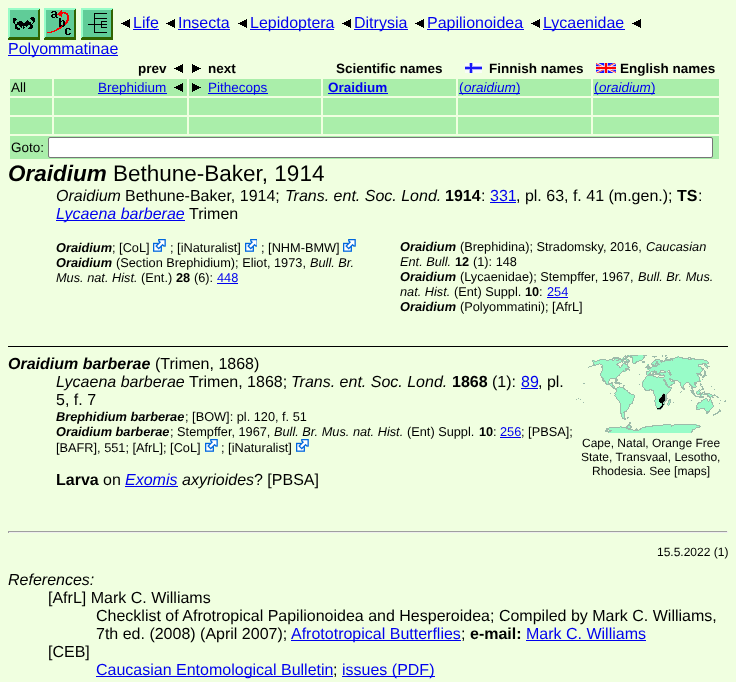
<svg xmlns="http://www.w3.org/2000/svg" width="736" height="682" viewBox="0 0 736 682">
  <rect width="100%" height="100%" fill="#f0ffe0"/>
  <image x="8" y="8" width="32" height="32" href="img/1.png"/>
  <image x="44" y="8" width="32" height="32" href="img/2.png"/>
  <image x="81" y="8" width="32" height="32" href="img/3.png"/>
  <image x="121" y="19" width="9" height="9" href="img/4.png"/>
  <path d="M133 29h26v1H133z" fill="#00e"/>
  <image x="166" y="19" width="9" height="9" href="img/4.png"/>
  <path d="M178 29h52v1H178z" fill="#00e"/>
  <image x="238" y="19" width="9" height="9" href="img/4.png"/>
  <path d="M250 29h84v1H250z" fill="#00e"/>
  <image x="342" y="19" width="9" height="9" href="img/4.png"/>
  <path d="M354 29h54v1H354z" fill="#00e"/>
  <image x="415" y="19" width="9" height="9" href="img/4.png"/>
  <path d="M427 29h97v1H427z" fill="#00e"/>
  <image x="531" y="19" width="9" height="9" href="img/4.png"/>
  <path d="M543 29h82v1H543z" fill="#00e"/>
  <image x="632" y="19" width="9" height="9" href="img/4.png"/>
  <path d="M8 55h110v1H8z" fill="#00e"/>
  <image x="174" y="64" width="9" height="9" href="img/4.png"/>
  <image x="192" y="64" width="9" height="9" href="img/5.png"/>
  <image x="465" y="63" width="17" height="10" href="img/6.png"/>
  <image x="596" y="63" width="20" height="10" href="img/7.png"/>
  <path d="M10 79h42v17H10z" fill="#aea"/>
  <path d="M54 79h133v17H54z" fill="#aea"/>
  <path d="M98 93h69v1H98z" fill="#00e"/>
  <image x="174" y="83" width="9" height="9" href="img/8.png"/>
  <path d="M189 79h132v17H189z" fill="#aea"/>
  <image x="192" y="83" width="9" height="9" href="img/9.png"/>
  <path d="M208 93h60v1H208z" fill="#00e"/>
  <path d="M323 79h133v17H323z" fill="#aea"/>
  <path d="M328 93h60v1H328z" fill="#00e"/>
  <path d="M458 79h133v17H458z" fill="#aea"/>
  <path d="M459 93h61v1H459z" fill="#00e"/>
  <path d="M593 79h126v17H593z" fill="#aea"/>
  <path d="M594 93h61v1H594z" fill="#00e"/>
  <path d="M10 98h42v17H10z" fill="#aea"/>
  <path d="M54 98h133v17H54z" fill="#aea"/>
  <path d="M189 98h132v17H189z" fill="#aea"/>
  <path d="M323 98h133v17H323z" fill="#aea"/>
  <path d="M458 98h133v17H458z" fill="#aea"/>
  <path d="M593 98h126v17H593z" fill="#aea"/>
  <path d="M10 117h42v17H10z" fill="#aea"/>
  <path d="M54 117h133v17H54z" fill="#aea"/>
  <path d="M189 117h132v17H189z" fill="#aea"/>
  <path d="M323 117h133v17H323z" fill="#aea"/>
  <path d="M458 117h133v17H458z" fill="#aea"/>
  <path d="M593 117h126v17H593z" fill="#aea"/>
  <path d="M10 136h709v23H10z" fill="#aea"/>
  <rect x="48.5" y="137.5" width="664" height="20" rx="1.5" fill="#fff" stroke="#767676"/>
  <path d="M490 202h26v1H490z" fill="#00e"/>
  <path d="M56 220h129v1H56z" fill="#00e"/>
  <image x="153" y="239" width="13" height="13" href="img/10.png"/>
  <image x="245" y="239" width="12" height="13" href="img/11.png"/>
  <image x="343" y="239" width="13" height="13" href="img/10.png"/>
  <path d="M217 283h21v1H217z" fill="#00e"/>
  <path d="M547 297h21v1H547z" fill="#00e"/>
  <path d="M8 346h720v1H8z" fill="#000"/>
  <path d="M521 388h17v1H521z" fill="#00e"/>
  <path d="M500 437h21v1H500z" fill="#00e"/>
  <image x="205" y="439" width="13" height="13" href="img/10.png"/>
  <image x="296" y="439" width="13" height="13" href="img/10.png"/>
  <image x="576" y="355" width="150" height="78" href="img/12.png"/>
  <path d="M125 486h53v1H125z" fill="#00e"/>
  <path d="M8 531h720v1H8z" fill="#9f9f9f"/>
  <path d="M727 531h1v2H727z" fill="#eee"/>
  <path d="M8 532h720v1H8z" fill="#eee"/>
  <path d="M8 531h1v2H8z" fill="#9f9f9f"/>
  <path d="M291 640h170v1H291z" fill="#00e"/>
  <path d="M526 640h120v1H526z" fill="#00e"/>
  <path d="M96 676h237v1H96z" fill="#00e"/>
  <path d="M342 676h93v1H342z" fill="#00e"/>
  <g font-family="Liberation Sans" font-size="16" fill="#00e">
    <text x="133" y="28">Life</text>
    <text x="178" y="28">Insecta</text>
    <text x="250" y="28">Lepidoptera</text>
    <text x="354" y="28">Ditrysia</text>
    <text x="427" y="28">Papilionoidea</text>
    <text x="543" y="28">Lycaenidae</text>
    <text x="8" y="54">Polyommatinae</text>
  </g>
  <g font-family="Liberation Sans" font-size="13.5" font-weight="bold" fill="#000">
    <text x="138" y="73">prev</text>
    <text x="208" y="73">next</text>
    <text x="336" y="73">Scientific names</text>
    <text x="489" y="73">Finnish names</text>
    <text x="620" y="73">English names</text>
  </g>
  <text x="11" y="92" font-family="Liberation Sans" font-size="13.5" fill="#000">All</text>
  <g font-family="Liberation Sans" font-size="13.5" fill="#00e">
    <text x="98" y="92">Brephidium</text>
    <text x="208" y="92">Pithecops</text>
  </g>
  <text x="328" y="92" font-family="Liberation Sans" font-size="13.5" font-weight="bold" fill="#00e">Oraidium</text>
  <text x="459" y="92" font-family="Liberation Sans" font-size="13.5" fill="#00e">(</text>
  <text x="464" y="92" font-family="Liberation Sans" font-size="13.5" font-style="italic" fill="#00e">oraidium</text>
  <g font-family="Liberation Sans" font-size="13.5" fill="#00e">
    <text x="516" y="92">)</text>
    <text x="594" y="92">(</text>
  </g>
  <text x="599" y="92" font-family="Liberation Sans" font-size="13.5" font-style="italic" fill="#00e">oraidium</text>
  <text x="651" y="92" font-family="Liberation Sans" font-size="13.5" fill="#00e">)</text>
  <text x="11" y="152" font-family="Liberation Sans" font-size="13.5" fill="#000">Goto:</text>
  <text x="8" y="181" font-family="Liberation Sans" font-size="22.5" font-weight="bold" font-style="italic" fill="#000">Oraidium</text>
  <text x="113" y="181" font-family="Liberation Sans" font-size="22.5" fill="#000">Bethune-Baker, 1914</text>
  <text x="56" y="201" font-family="Liberation Sans" font-size="16" font-style="italic" fill="#000">Oraidium</text>
  <text x="125" y="201" font-family="Liberation Sans" font-size="16" fill="#000">Bethune-Baker, 1914;</text>
  <text x="285" y="201" font-family="Liberation Sans" font-size="16" font-style="italic" fill="#000">Trans. ent. Soc. Lond.</text>
  <text x="445" y="201" font-family="Liberation Sans" font-size="16" font-weight="bold" fill="#000">1914</text>
  <text x="481" y="201" font-family="Liberation Sans" font-size="16" fill="#000">:</text>
  <text x="490" y="201" font-family="Liberation Sans" font-size="16" fill="#00e">331</text>
  <text x="516" y="201" font-family="Liberation Sans" font-size="16" fill="#000">, pl. 63, f. 41 (m.gen.);</text>
  <text x="677" y="201" font-family="Liberation Sans" font-size="16" font-weight="bold" fill="#000">TS</text>
  <text x="698" y="201" font-family="Liberation Sans" font-size="16" fill="#000">:</text>
  <text x="56" y="219" font-family="Liberation Sans" font-size="16" font-style="italic" fill="#00e">Lycaena barberae</text>
  <text x="189" y="219" font-family="Liberation Sans" font-size="16" fill="#000">Trimen</text>
  <text x="56" y="252" font-family="Liberation Sans" font-size="12.75" font-weight="bold" font-style="italic" fill="#000">Oraidium</text>
  <g font-family="Liberation Sans" font-size="12.75" fill="#000">
    <text x="112" y="252">; [CoL]</text>
    <text x="170" y="252">; [iNaturalist]</text>
    <text x="261" y="252">; [NHM-BMW]</text>
  </g>
  <text x="400" y="251" font-family="Liberation Sans" font-size="12.75" font-weight="bold" font-style="italic" fill="#000">Oraidium</text>
  <text x="460" y="251" font-family="Liberation Sans" font-size="12.75" fill="#000">(Brephidina); Stradomsky, 2016,</text>
  <g font-family="Liberation Sans" font-size="12.75" font-style="italic" fill="#000">
    <text x="646" y="251">Caucasian</text>
    <text x="400" y="266">Ent. Bull.</text>
  </g>
  <text x="455" y="266" font-family="Liberation Sans" font-size="12.75" font-weight="bold" fill="#000">12</text>
  <text x="473" y="266" font-family="Liberation Sans" font-size="12.75" fill="#000">(1): 148</text>
  <text x="56" y="267" font-family="Liberation Sans" font-size="12.75" font-weight="bold" font-style="italic" fill="#000">Oraidium</text>
  <text x="116" y="267" font-family="Liberation Sans" font-size="12.75" fill="#000">(Section Brephidium); Eliot, 1973,</text>
  <g font-family="Liberation Sans" font-size="12.75" font-style="italic" fill="#000">
    <text x="310" y="267">Bull. Br.</text>
    <text x="56" y="282">Mus. nat. Hist.</text>
  </g>
  <text x="141" y="282" font-family="Liberation Sans" font-size="12.75" fill="#000">(Ent.)</text>
  <text x="176" y="282" font-family="Liberation Sans" font-size="12.75" font-weight="bold" fill="#000">28</text>
  <text x="194" y="282" font-family="Liberation Sans" font-size="12.75" fill="#000">(6):</text>
  <text x="217" y="282" font-family="Liberation Sans" font-size="12.75" fill="#00e">448</text>
  <text x="400" y="281" font-family="Liberation Sans" font-size="12.75" font-weight="bold" font-style="italic" fill="#000">Oraidium</text>
  <text x="460" y="281" font-family="Liberation Sans" font-size="12.75" fill="#000">(Lycaenidae); Stempffer, 1967,</text>
  <g font-family="Liberation Sans" font-size="12.75" font-style="italic" fill="#000">
    <text x="638" y="281">Bull. Br. Mus.</text>
    <text x="400" y="296">nat. Hist.</text>
  </g>
  <text x="454" y="296" font-family="Liberation Sans" font-size="12.75" fill="#000">(Ent) Suppl.</text>
  <text x="525" y="296" font-family="Liberation Sans" font-size="12.75" font-weight="bold" fill="#000">10</text>
  <text x="539" y="296" font-family="Liberation Sans" font-size="12.75" fill="#000">:</text>
  <text x="547" y="296" font-family="Liberation Sans" font-size="12.75" fill="#00e">254</text>
  <text x="400" y="311" font-family="Liberation Sans" font-size="12.75" font-weight="bold" font-style="italic" fill="#000">Oraidium</text>
  <text x="460" y="311" font-family="Liberation Sans" font-size="12.75" fill="#000">(Polyommatini); [AfrL]</text>
  <text x="8" y="369" font-family="Liberation Sans" font-size="16" font-weight="bold" font-style="italic" fill="#000">Oraidium barberae</text>
  <text x="155" y="369" font-family="Liberation Sans" font-size="16" fill="#000">(Trimen, 1868)</text>
  <text x="56" y="387" font-family="Liberation Sans" font-size="16" font-style="italic" fill="#000">Lycaena barberae</text>
  <text x="189" y="387" font-family="Liberation Sans" font-size="16" fill="#000">Trimen, 1868;</text>
  <text x="291" y="387" font-family="Liberation Sans" font-size="16" font-style="italic" fill="#000">Trans. ent. Soc. Lond.</text>
  <text x="452" y="387" font-family="Liberation Sans" font-size="16" font-weight="bold" fill="#000">1868</text>
  <text x="492" y="387" font-family="Liberation Sans" font-size="16" fill="#000">(1):</text>
  <text x="521" y="387" font-family="Liberation Sans" font-size="16" fill="#00e">89</text>
  <g font-family="Liberation Sans" font-size="16" fill="#000">
    <text x="538" y="387">, pl.</text>
    <text x="56" y="405">5, f. 7</text>
  </g>
  <text x="56" y="421" font-family="Liberation Sans" font-size="12.75" font-weight="bold" font-style="italic" fill="#000">Brephidium barberae</text>
  <text x="185" y="421" font-family="Liberation Sans" font-size="12.75" fill="#000">; [BOW]: pl. 120, f. 51</text>
  <text x="56" y="436" font-family="Liberation Sans" font-size="12.75" font-weight="bold" font-style="italic" fill="#000">Oraidium barberae</text>
  <text x="170" y="436" font-family="Liberation Sans" font-size="12.75" fill="#000">; Stempffer, 1967,</text>
  <text x="274" y="436" font-family="Liberation Sans" font-size="12.75" font-style="italic" fill="#000">Bull. Br. Mus. nat. Hist.</text>
  <text x="407" y="436" font-family="Liberation Sans" font-size="12.75" fill="#000">(Ent) Suppl.</text>
  <text x="479" y="436" font-family="Liberation Sans" font-size="12.75" font-weight="bold" fill="#000">10</text>
  <text x="493" y="436" font-family="Liberation Sans" font-size="12.75" fill="#000">:</text>
  <text x="500" y="436" font-family="Liberation Sans" font-size="12.75" fill="#00e">256</text>
  <g font-family="Liberation Sans" font-size="12.75" fill="#000">
    <text x="521" y="436">; [PBSA];</text>
    <text x="56" y="452">[BAFR], 551; [AfrL]; [CoL]</text>
    <text x="221" y="452">; [iNaturalist]</text>
  </g>
  <g font-family="Liberation Sans" font-size="12" fill="#000">
    <text x="582" y="447">Cape, Natal, Orange Free</text>
    <text x="581" y="461">State, Transvaal, Lesotho,</text>
    <text x="592" y="475">Rhodesia. See [maps]</text>
  </g>
  <text x="56" y="485" font-family="Liberation Sans" font-size="16" font-weight="bold" fill="#000">Larva</text>
  <text x="103" y="485" font-family="Liberation Sans" font-size="16" fill="#000">on</text>
  <text x="125" y="485" font-family="Liberation Sans" font-size="16" font-style="italic" fill="#00e">Exomis</text>
  <text x="182" y="485" font-family="Liberation Sans" font-size="16" font-style="italic" fill="#000">axyrioides</text>
  <text x="254" y="485" font-family="Liberation Sans" font-size="16" fill="#000">? [PBSA]</text>
  <text x="657" y="556" font-family="Liberation Sans" font-size="12" fill="#000">15.5.2022 (1)</text>
  <text x="8" y="585" font-family="Liberation Sans" font-size="16" font-style="italic" fill="#000">References:</text>
  <g font-family="Liberation Sans" font-size="16" fill="#000">
    <text x="48" y="603">[AfrL] Mark C. Williams</text>
    <text x="96" y="621">Checklist of Afrotropical Papilionoidea and Hesperoidea; Compiled by Mark C. Williams,</text>
    <text x="96" y="639">7th ed. (2008) (April 2007);</text>
  </g>
  <text x="291" y="639" font-family="Liberation Sans" font-size="16" fill="#00e">Afrototropical Butterflies</text>
  <text x="461" y="639" font-family="Liberation Sans" font-size="16" fill="#000">;</text>
  <text x="470" y="639" font-family="Liberation Sans" font-size="16" font-weight="bold" fill="#000">e-mail:</text>
  <text x="526" y="639" font-family="Liberation Sans" font-size="16" fill="#00e">Mark C. Williams</text>
  <text x="48" y="657" font-family="Liberation Sans" font-size="16" fill="#000">[CEB]</text>
  <text x="96" y="675" font-family="Liberation Sans" font-size="16" fill="#00e">Caucasian Entomological Bulletin</text>
  <text x="333" y="675" font-family="Liberation Sans" font-size="16" fill="#000">;</text>
  <text x="342" y="675" font-family="Liberation Sans" font-size="16" fill="#00e">issues (PDF)</text>
</svg>
